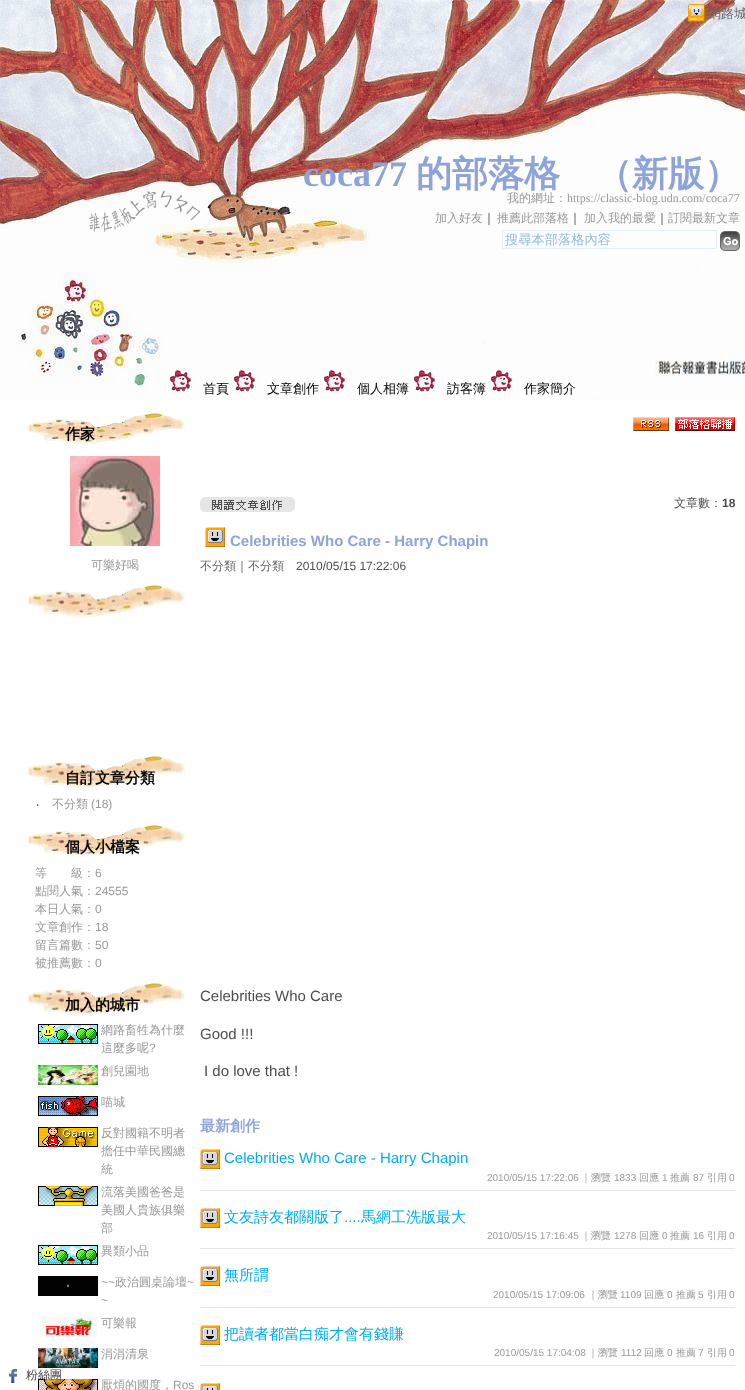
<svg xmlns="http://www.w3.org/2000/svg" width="745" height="1390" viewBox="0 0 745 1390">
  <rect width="100%" height="100%" fill="#fff"/>
  <image x="0" y="0" width="745" height="400" href="img/2.png"/>
  <image x="688" y="4" width="17" height="18" href="img/1.png"/>
  <path d="M502.5 230.5h214v18H502.5z" fill="none" stroke="#e1effc"/>
  <image x="720" y="231" width="20" height="20" href="img/3.png"/>
  <image x="170" y="370" width="21" height="22" href="img/4.png"/>
  <image x="234" y="370" width="21" height="22" href="img/4.png"/>
  <image x="324" y="370" width="21" height="22" href="img/4.png"/>
  <image x="414" y="370" width="21" height="22" href="img/4.png"/>
  <image x="491" y="370" width="21" height="22" href="img/4.png"/>
  <image x="26" y="413" width="160" height="32" href="img/5.png"/>
  <image x="70" y="456" width="90" height="90" href="img/6.png"/>
  <image x="27" y="585" width="159" height="33" href="img/7.png"/>
  <image x="27" y="756" width="159" height="33" href="img/7.png"/>
  <image x="26" y="825" width="160" height="32" href="img/5.png"/>
  <image x="27" y="983" width="159" height="33" href="img/7.png"/>
  <image x="38" y="1024" width="60" height="20" href="img/8.png"/>
  <image x="38" y="1065" width="60" height="20" href="img/9.png"/>
  <image x="38" y="1096" width="60" height="20" href="img/10.png"/>
  <image x="38" y="1127" width="60" height="20" href="img/11.png"/>
  <image x="38" y="1186" width="60" height="20" href="img/12.png"/>
  <image x="38" y="1245" width="60" height="20" href="img/8.png"/>
  <image x="38" y="1276" width="60" height="20" href="img/13.png"/>
  <image x="42" y="1317" width="55" height="20" href="img/14.png"/>
  <image x="38" y="1348" width="60" height="20" href="img/15.png"/>
  <image x="38" y="1379" width="60" height="11" href="img/16.png"/>
  <image x="633" y="417" width="36" height="14" href="img/17.png"/>
  <image x="675" y="417" width="60" height="14" href="img/18.png"/>
  <image x="200" y="497" width="95" height="15" href="img/19.png"/>
  <image x="205" y="527" width="20" height="20" href="img/20.png"/>
  <image x="200" y="1149" width="20" height="20" href="img/20.png"/>
  <path d="M200 1190h535v1H200z" fill="#e5e5e5"/>
  <image x="200" y="1208" width="20" height="20" href="img/20.png"/>
  <path d="M200 1248h535v1H200z" fill="#e5e5e5"/>
  <image x="200" y="1266" width="20" height="20" href="img/20.png"/>
  <path d="M200 1307h535v1H200z" fill="#e5e5e5"/>
  <image x="200" y="1325" width="20" height="20" href="img/20.png"/>
  <path d="M200 1365h535v1H200z" fill="#e5e5e5"/>
  <image x="200" y="1383" width="20" height="7" href="img/21.png"/>
  <image x="9" y="1369" width="8" height="14" href="img/22.png"/>
  <text x="708" y="18" font-family="WenQuanYi Zen Hei" font-size="13" font-weight="500" fill="#666">網路城</text>
  <text x="303" y="186" font-family="Liberation Serif" font-size="36" font-weight="bold" fill="#8da3d9">coca77</text>
  <g font-family="WenQuanYi Zen Hei" font-size="36" font-weight="bold" fill="#8da3d9">
    <text x="416" y="186">的部落格</text>
    <text x="596" y="186">（新版）</text>
  </g>
  <text x="507" y="202" font-family="WenQuanYi Zen Hei" font-size="12" font-weight="500" fill="#999">我的網址：</text>
  <text x="567" y="202" font-family="Liberation Serif" font-size="12" fill="#999">https://classic-blog.udn.com/coca77</text>
  <text x="435" y="222" font-family="WenQuanYi Zen Hei" font-size="12" font-weight="500" fill="#999">加入好友</text>
  <text x="483" y="222" font-family="WenQuanYi Zen Hei" font-size="12" font-weight="500" fill="#333">｜</text>
  <text x="497" y="222" font-family="WenQuanYi Zen Hei" font-size="12" font-weight="500" fill="#999">推薦此部落格</text>
  <text x="569" y="222" font-family="WenQuanYi Zen Hei" font-size="12" font-weight="500" fill="#333">｜</text>
  <text x="584" y="222" font-family="WenQuanYi Zen Hei" font-size="12" font-weight="500" fill="#999">加入我的最愛</text>
  <text x="656" y="222" font-family="WenQuanYi Zen Hei" font-size="12" font-weight="500" fill="#333">｜</text>
  <text x="668" y="222" font-family="WenQuanYi Zen Hei" font-size="12" font-weight="500" fill="#999">訂閱最新文章</text>
  <text x="505" y="244" font-family="WenQuanYi Zen Hei" font-size="13.25" font-weight="500" fill="#94b9e2">搜尋本部落格內容</text>
  <g font-family="WenQuanYi Zen Hei" font-size="13" font-weight="500" fill="#000">
    <text x="203" y="393">首頁</text>
    <text x="267" y="393">文章創作</text>
    <text x="357" y="393">個人相簿</text>
    <text x="447" y="393">訪客簿</text>
    <text x="524" y="393">作家簡介</text>
  </g>
  <text x="65" y="439" font-family="WenQuanYi Zen Hei" font-size="15" font-weight="bold" fill="#000">作家</text>
  <text x="91" y="569" font-family="WenQuanYi Zen Hei" font-size="12" font-weight="500" fill="#999">可樂好喝</text>
  <text x="65" y="783" font-family="WenQuanYi Zen Hei" font-size="15" font-weight="bold" fill="#000">自訂文章分類</text>
  <text x="36" y="808" font-family="Noto Sans" font-size="12" fill="#333">‧</text>
  <text x="52" y="808" font-family="WenQuanYi Zen Hei" font-size="12" font-weight="500" fill="#999">不分類</text>
  <text x="91" y="808" font-family="Liberation Sans" font-size="12" fill="#999">(18)</text>
  <text x="65" y="852" font-family="WenQuanYi Zen Hei" font-size="15" font-weight="bold" fill="#000">個人小檔案</text>
  <text x="35" y="877" font-family="WenQuanYi Zen Hei" font-size="12" font-weight="500" fill="#999">等　　級：</text>
  <text x="95" y="877" font-family="Liberation Sans" font-size="12" fill="#999">6</text>
  <text x="35" y="895" font-family="WenQuanYi Zen Hei" font-size="12" font-weight="500" fill="#999">點閱人氣：</text>
  <text x="95" y="895" font-family="Liberation Sans" font-size="12" fill="#999">24555</text>
  <text x="35" y="913" font-family="WenQuanYi Zen Hei" font-size="12" font-weight="500" fill="#999">本日人氣：</text>
  <text x="95" y="913" font-family="Liberation Sans" font-size="12" fill="#999">0</text>
  <text x="35" y="931" font-family="WenQuanYi Zen Hei" font-size="12" font-weight="500" fill="#999">文章創作：</text>
  <text x="95" y="931" font-family="Liberation Sans" font-size="12" fill="#999">18</text>
  <text x="35" y="949" font-family="WenQuanYi Zen Hei" font-size="12" font-weight="500" fill="#999">留言篇數：</text>
  <text x="95" y="949" font-family="Liberation Sans" font-size="12" fill="#999">50</text>
  <text x="35" y="967" font-family="WenQuanYi Zen Hei" font-size="12" font-weight="500" fill="#999">被推薦數：</text>
  <text x="95" y="967" font-family="Liberation Sans" font-size="12" fill="#999">0</text>
  <text x="65" y="1010" font-family="WenQuanYi Zen Hei" font-size="15" font-weight="bold" fill="#000">加入的城市</text>
  <g font-family="WenQuanYi Zen Hei" font-size="12" font-weight="500" fill="#999">
    <text x="101" y="1034">網路畜牲為什麼</text>
    <text x="101" y="1052">這麼多呢</text>
  </g>
  <text x="149" y="1052" font-family="Liberation Sans" font-size="12" fill="#999">?</text>
  <g font-family="WenQuanYi Zen Hei" font-size="12" font-weight="500" fill="#999">
    <text x="101" y="1075">創兒園地</text>
    <text x="101" y="1106">喵城</text>
    <text x="101" y="1137">反對國籍不明者</text>
    <text x="101" y="1155">擔任中華民國總</text>
    <text x="101" y="1173">統</text>
    <text x="101" y="1196">流落美國爸爸是</text>
    <text x="101" y="1214">美國人貴族俱樂</text>
    <text x="101" y="1232">部</text>
    <text x="101" y="1255">異類小品</text>
  </g>
  <text x="101" y="1286" font-family="Liberation Sans" font-size="12" fill="#999">~~</text>
  <text x="115" y="1286" font-family="WenQuanYi Zen Hei" font-size="12" font-weight="500" fill="#999">政治圓桌論壇</text>
  <g font-family="Liberation Sans" font-size="12" fill="#999">
    <text x="187" y="1286">~</text>
    <text x="101" y="1304">~</text>
  </g>
  <g font-family="WenQuanYi Zen Hei" font-size="12" font-weight="500" fill="#999">
    <text x="101" y="1327">可樂報</text>
    <text x="101" y="1358">涓涓清泉</text>
    <text x="101" y="1389">厭煩的國度，</text>
  </g>
  <text x="173" y="1389" font-family="Liberation Sans" font-size="12" fill="#999">Ros</text>
  <text x="674" y="507" font-family="WenQuanYi Zen Hei" font-size="12" font-weight="500" fill="#4d4d4d">文章數：</text>
  <text x="722" y="507" font-family="Liberation Sans" font-size="12" font-weight="bold" fill="#4d4d4d">18</text>
  <text x="230" y="546" font-family="Liberation Sans" font-size="15" font-weight="bold" fill="#8da3d9">Celebrities Who Care - Harry Chapin</text>
  <text x="200" y="570" font-family="WenQuanYi Zen Hei" font-size="12" font-weight="500" fill="#666">不分類</text>
  <text x="236" y="570" font-family="WenQuanYi Zen Hei" font-size="12" font-weight="500" fill="#4d4d4d">｜</text>
  <text x="248" y="570" font-family="WenQuanYi Zen Hei" font-size="12" font-weight="500" fill="#666">不分類</text>
  <text x="296" y="570" font-family="Liberation Sans" font-size="12" fill="#4d4d4d">2010/05/15 17:22:06</text>
  <g font-family="Liberation Sans" font-size="15" fill="#4d4d4d">
    <text x="200" y="1001">Celebrities Who Care</text>
    <text x="200" y="1039">Good !!!</text>
    <text x="204" y="1076">I do love that !</text>
  </g>
  <text x="200" y="1131" font-family="WenQuanYi Zen Hei" font-size="15" font-weight="bold" fill="#8da3d9">最新創作</text>
  <text x="224" y="1163" font-family="Liberation Sans" font-size="15" fill="#00aeef">Celebrities Who Care - Harry Chapin</text>
  <text x="487" y="1181" font-family="Liberation Sans" font-size="10" fill="#999">2010/05/15 17:22:06</text>
  <text x="581" y="1181" font-family="WenQuanYi Zen Hei" font-size="10" font-weight="500" fill="#999">｜瀏覽</text>
  <text x="614" y="1181" font-family="Liberation Sans" font-size="10" fill="#999">1833</text>
  <text x="639" y="1181" font-family="WenQuanYi Zen Hei" font-size="10" font-weight="500" fill="#999">回應</text>
  <text x="662" y="1181" font-family="Liberation Sans" font-size="10" fill="#999">1</text>
  <text x="670" y="1181" font-family="WenQuanYi Zen Hei" font-size="10" font-weight="500" fill="#999">推薦</text>
  <text x="693" y="1181" font-family="Liberation Sans" font-size="10" fill="#999">87</text>
  <text x="707" y="1181" font-family="WenQuanYi Zen Hei" font-size="10" font-weight="500" fill="#999">引用</text>
  <text x="729" y="1181" font-family="Liberation Sans" font-size="10" fill="#999">0</text>
  <text x="224" y="1222" font-family="WenQuanYi Zen Hei" font-size="15" font-weight="500" fill="#00aeef">文友詩友都關版了</text>
  <text x="344" y="1222" font-family="Liberation Sans" font-size="15" fill="#00aeef">....</text>
  <text x="361" y="1222" font-family="WenQuanYi Zen Hei" font-size="15" font-weight="500" fill="#00aeef">馬網工洗版最大</text>
  <text x="487" y="1239" font-family="Liberation Sans" font-size="10" fill="#999">2010/05/15 17:16:45</text>
  <text x="581" y="1239" font-family="WenQuanYi Zen Hei" font-size="10" font-weight="500" fill="#999">｜瀏覽</text>
  <text x="614" y="1239" font-family="Liberation Sans" font-size="10" fill="#999">1278</text>
  <text x="639" y="1239" font-family="WenQuanYi Zen Hei" font-size="10" font-weight="500" fill="#999">回應</text>
  <text x="662" y="1239" font-family="Liberation Sans" font-size="10" fill="#999">0</text>
  <text x="670" y="1239" font-family="WenQuanYi Zen Hei" font-size="10" font-weight="500" fill="#999">推薦</text>
  <text x="693" y="1239" font-family="Liberation Sans" font-size="10" fill="#999">16</text>
  <text x="707" y="1239" font-family="WenQuanYi Zen Hei" font-size="10" font-weight="500" fill="#999">引用</text>
  <text x="729" y="1239" font-family="Liberation Sans" font-size="10" fill="#999">0</text>
  <text x="224" y="1280" font-family="WenQuanYi Zen Hei" font-size="15" font-weight="500" fill="#00aeef">無所謂</text>
  <text x="493" y="1298" font-family="Liberation Sans" font-size="10" fill="#999">2010/05/15 17:09:06</text>
  <text x="588" y="1298" font-family="WenQuanYi Zen Hei" font-size="10" font-weight="500" fill="#999">｜瀏覽</text>
  <text x="620" y="1298" font-family="Liberation Sans" font-size="10" fill="#999">1109</text>
  <text x="644" y="1298" font-family="WenQuanYi Zen Hei" font-size="10" font-weight="500" fill="#999">回應</text>
  <text x="667" y="1298" font-family="Liberation Sans" font-size="10" fill="#999">0</text>
  <text x="676" y="1298" font-family="WenQuanYi Zen Hei" font-size="10" font-weight="500" fill="#999">推薦</text>
  <text x="698" y="1298" font-family="Liberation Sans" font-size="10" fill="#999">5</text>
  <text x="707" y="1298" font-family="WenQuanYi Zen Hei" font-size="10" font-weight="500" fill="#999">引用</text>
  <text x="729" y="1298" font-family="Liberation Sans" font-size="10" fill="#999">0</text>
  <text x="224" y="1339" font-family="WenQuanYi Zen Hei" font-size="15" font-weight="500" fill="#00aeef">把讀者都當白痴才會有錢賺</text>
  <text x="494" y="1356" font-family="Liberation Sans" font-size="10" fill="#999">2010/05/15 17:04:08</text>
  <text x="588" y="1356" font-family="WenQuanYi Zen Hei" font-size="10" font-weight="500" fill="#999">｜瀏覽</text>
  <text x="621" y="1356" font-family="Liberation Sans" font-size="10" fill="#999">1112</text>
  <text x="644" y="1356" font-family="WenQuanYi Zen Hei" font-size="10" font-weight="500" fill="#999">回應</text>
  <text x="667" y="1356" font-family="Liberation Sans" font-size="10" fill="#999">0</text>
  <text x="676" y="1356" font-family="WenQuanYi Zen Hei" font-size="10" font-weight="500" fill="#999">推薦</text>
  <text x="698" y="1356" font-family="Liberation Sans" font-size="10" fill="#999">7</text>
  <text x="707" y="1356" font-family="WenQuanYi Zen Hei" font-size="10" font-weight="500" fill="#999">引用</text>
  <text x="729" y="1356" font-family="Liberation Sans" font-size="10" fill="#999">0</text>
  <text x="26" y="1379" font-family="WenQuanYi Zen Hei" font-size="12" font-weight="500" fill="#444">粉絲團</text>
</svg>
